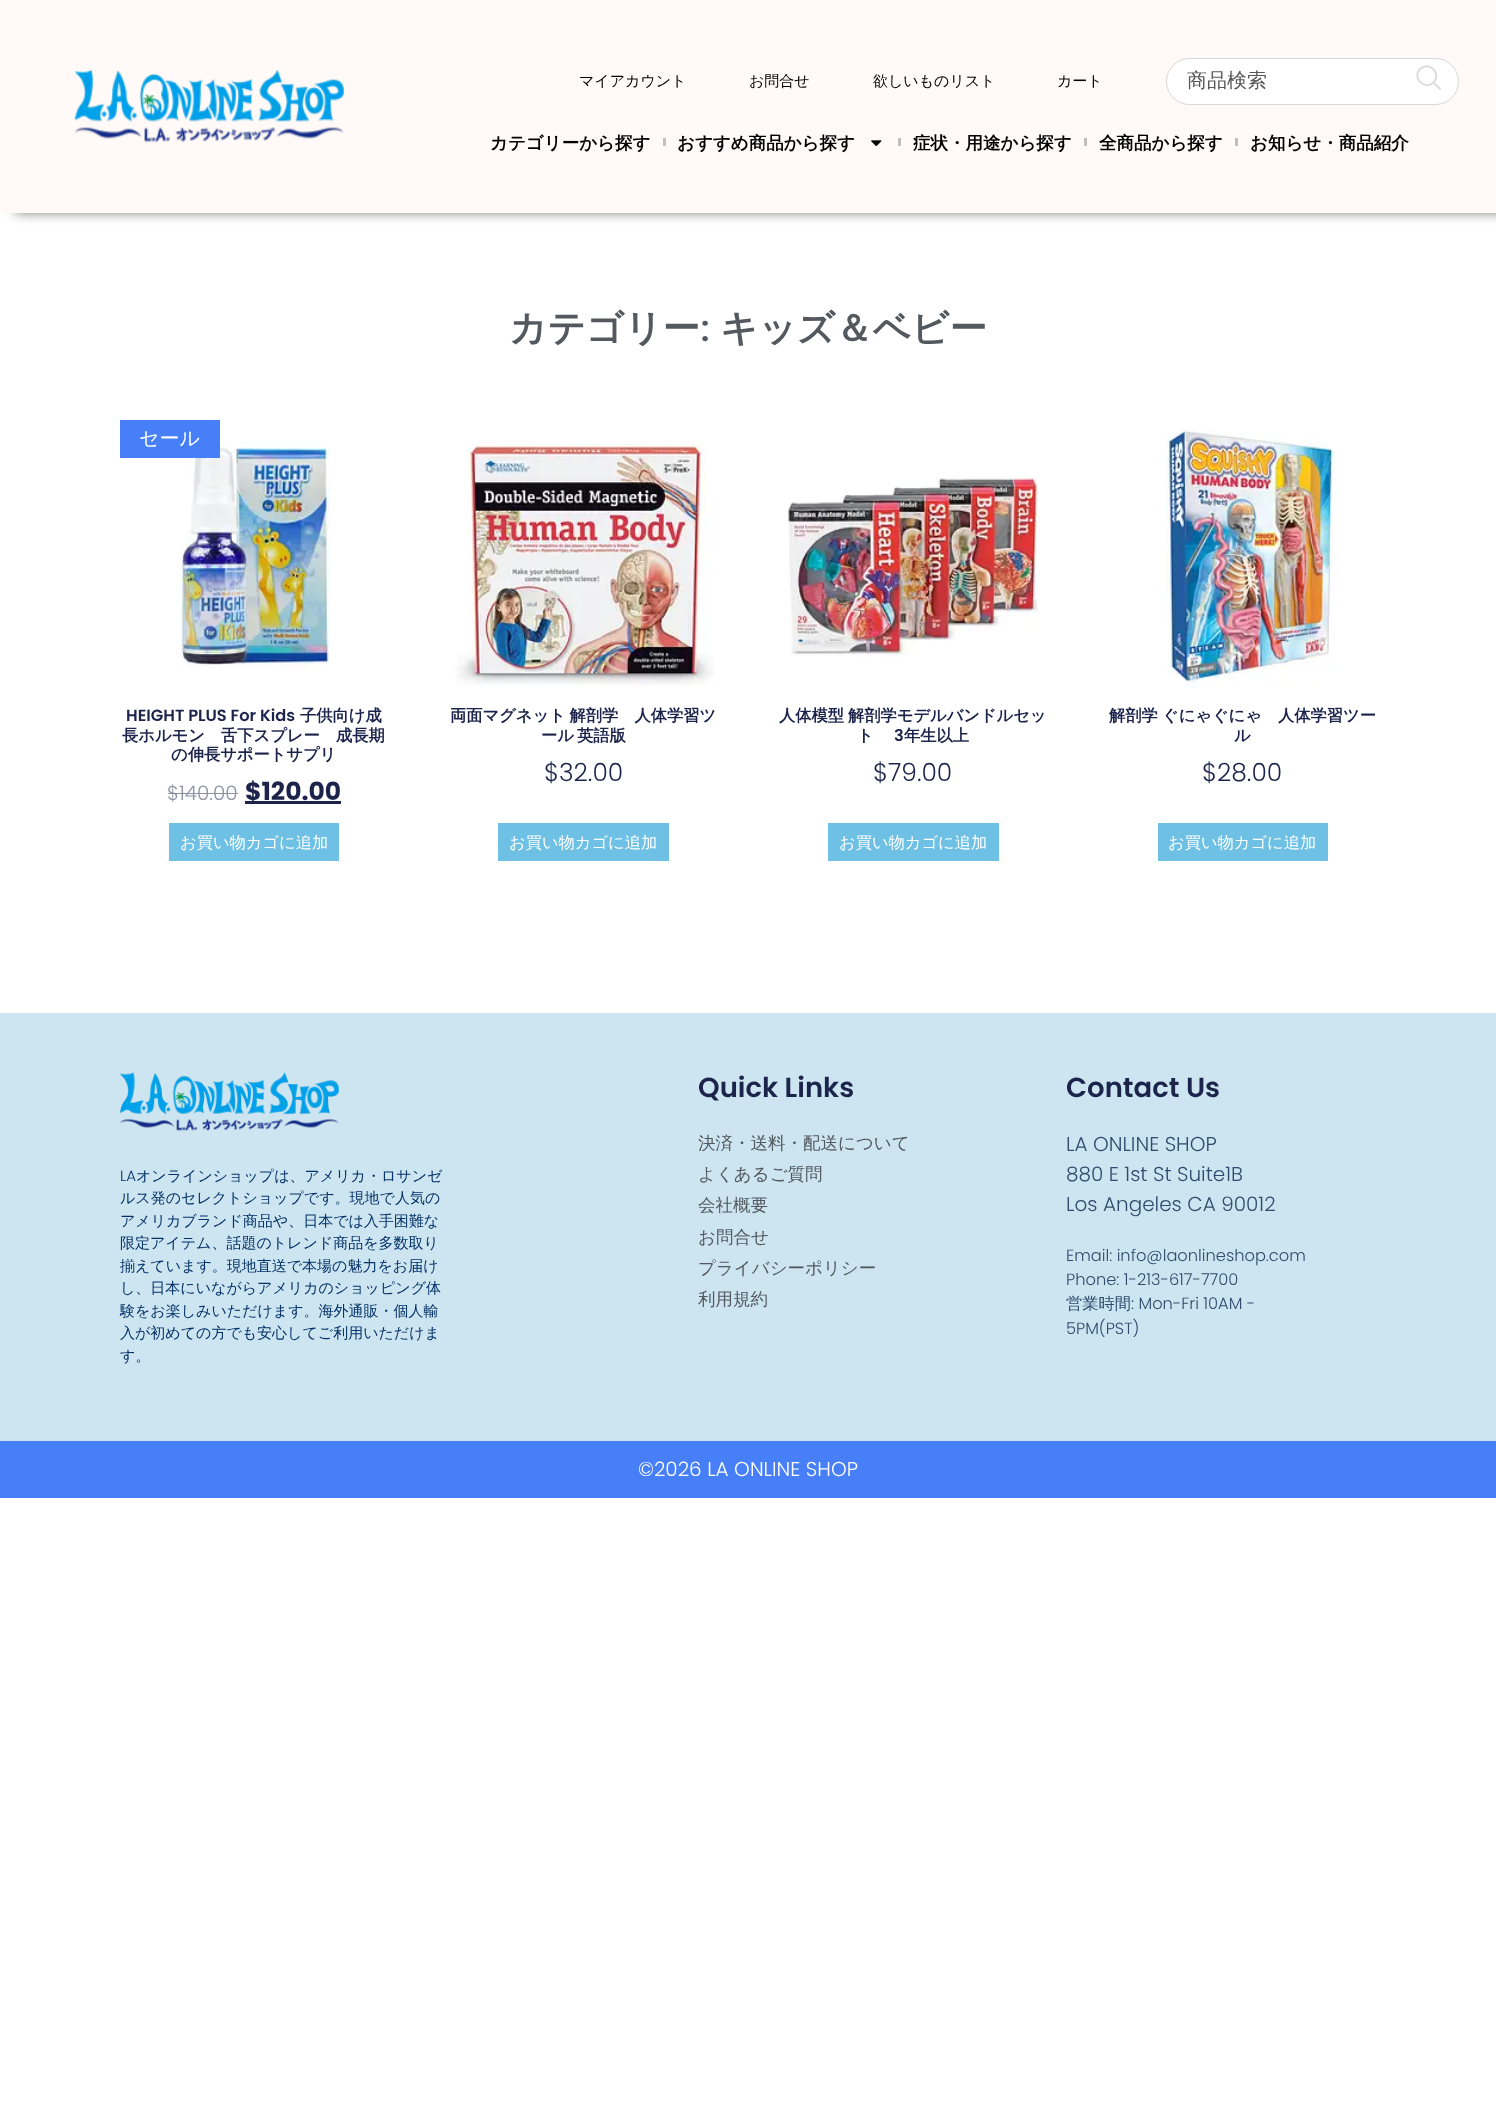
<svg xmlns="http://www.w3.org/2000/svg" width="1496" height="2123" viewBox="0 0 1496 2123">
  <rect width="100%" height="100%" fill="#fff"/>
  <path d="M15 0h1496v213H15z" fill="#00000080" filter="blur(6px)"/>
  <path d="M0 0h1496v213H0z" fill="#fffaf7"/>
  <image x="74" y="70" width="271" height="73" href="img/1.png"/>
  <rect x="1166.5" y="58.5" width="292" height="46" rx="23" fill="#fff" stroke="#d8d8d8"/>
  <path d="M1440 89L1433.5 82.5M1433.5 82.5C1442 73.5 1429 60.5 1420 69C1411.5 77.5 1425 91 1433.5 82.5Z" fill="none" stroke="#dcdcdc" stroke-width="1.9" stroke-linecap="round" stroke-linejoin="round"/>
  <path d="M663 138h3v8H663z" fill="#c1bfbf"/>
  <image x="871" y="140" width="11" height="6" href="img/2.png"/>
  <path d="M898 138h3v8H898z" fill="#c1bfbf"/>
  <path d="M1084 138h3v8H1084z" fill="#c1bfbf"/>
  <path d="M1235 138h3v8H1235z" fill="#c1bfbf"/>
  <image x="177" y="446" width="155" height="223" href="img/3.png"/>
  <path d="M120 420h100v38H120z" fill="#467ff7"/>
  <path d="M168 793h70v1H168z" fill="#8e92a5"/>
  <path d="M245 801h96v3H245z" fill="#1c244b"/>
  <path d="M169 823h170v38H169z" fill="#6ec1e4"/>
  <image x="455" y="439" width="260" height="247" href="img/4.png"/>
  <path d="M498 823h171v38H498z" fill="#6ec1e4"/>
  <image x="788" y="477" width="250" height="180" href="img/5.png"/>
  <path d="M828 823h171v38H828z" fill="#6ec1e4"/>
  <image x="1166" y="429" width="172" height="259" href="img/6.png"/>
  <path d="M1158 823h170v38H1158z" fill="#6ec1e4"/>
  <path d="M0 1013h1496v428H0z" fill="#cce5f0"/>
  <image x="120" y="1072" width="219" height="59" href="img/7.png"/>
  <path d="M0 1441h1496v57H0z" fill="#467ff7"/>
  <g font-family="WenQuanYi Zen Hei" font-size="15" font-weight="500" fill="#000">
    <text x="579" y="86">マイアカウント</text>
    <text x="749" y="86">お問合せ</text>
    <text x="873" y="86">欲しいものリスト</text>
    <text x="1057" y="86">カート</text>
  </g>
  <text x="1187" y="87" font-family="WenQuanYi Zen Hei" font-size="20" font-weight="500" fill="#575757">商品検索</text>
  <g font-family="WenQuanYi Zen Hei" font-size="17.5" font-weight="bold" fill="#000">
    <text x="490" y="149">カテゴリーから探す</text>
    <text x="677" y="149">おすすめ商品から探す</text>
    <text x="913" y="149">症状・用途から探す</text>
    <text x="1099" y="149">全商品から探す</text>
    <text x="1250" y="149">お知らせ・商品紹介</text>
  </g>
  <text x="509" y="341" font-family="WenQuanYi Zen Hei" font-size="37.5" font-weight="bold" fill="#54595f">カテゴリー</text>
  <text x="700" y="341" font-family="Roboto" font-size="37.5" font-weight="600" fill="#54595f">:</text>
  <text x="720" y="341" font-family="WenQuanYi Zen Hei" font-size="37.5" font-weight="bold" fill="#54595f">キッズ＆ベビー</text>
  <text x="139" y="445" font-family="WenQuanYi Zen Hei" font-size="20" font-weight="500" fill="#fff">セール</text>
  <text x="126" y="721" font-family="Poppins" font-size="16.25" font-weight="600" fill="#1c244b">HEIGHT PLUS For Kids</text>
  <g font-family="WenQuanYi Zen Hei" font-size="16.25" font-weight="bold" fill="#1c244b">
    <text x="300" y="721">子供向け成</text>
    <text x="122" y="741">長ホルモン　舌下スプレー　成長期</text>
    <text x="171" y="760">の伸長サポートサプリ</text>
  </g>
  <text x="167" y="800" font-family="Poppins" font-size="20" font-weight="300" fill="#8e92a5">$140.00</text>
  <text x="245" y="800" font-family="Poppins" font-size="25" font-weight="bold" fill="#1c244b">$120.00</text>
  <text x="180" y="848" font-family="WenQuanYi Zen Hei" font-size="16.25" font-weight="500" fill="#fff">お買い物カゴに追加</text>
  <g font-family="WenQuanYi Zen Hei" font-size="16.25" font-weight="bold" fill="#1c244b">
    <text x="450" y="721" word-spacing="-1">両面マグネット 解剖学　人体学習ツ</text>
    <text x="541" y="741">ール</text>
    <text x="577" y="741">英語版</text>
  </g>
  <text x="544" y="781" font-family="Poppins" font-size="25" font-weight="300" fill="#1c244b">$32.00</text>
  <text x="509" y="848" font-family="WenQuanYi Zen Hei" font-size="16.25" font-weight="500" fill="#fff">お買い物カゴに追加</text>
  <g font-family="WenQuanYi Zen Hei" font-size="16.25" font-weight="bold" fill="#1c244b">
    <text x="779" y="721">人体模型</text>
    <text x="848" y="721">解剖学モデルバンドルセッ</text>
    <text x="857" y="741">ト</text>
  </g>
  <text x="894" y="741" font-family="Poppins" font-size="16.25" font-weight="600" fill="#1c244b">3</text>
  <text x="904" y="741" font-family="WenQuanYi Zen Hei" font-size="16.25" font-weight="bold" fill="#1c244b">年生以上</text>
  <text x="873" y="781" font-family="Poppins" font-size="25" font-weight="300" fill="#1c244b">$79.00</text>
  <text x="839" y="848" font-family="WenQuanYi Zen Hei" font-size="16.25" font-weight="500" fill="#fff">お買い物カゴに追加</text>
  <g font-family="WenQuanYi Zen Hei" font-size="16.25" font-weight="bold" fill="#1c244b">
    <text x="1109" y="721">解剖学</text>
    <text x="1162" y="721">ぐにゃぐにゃ　人体学習ツー</text>
    <text x="1234" y="741">ル</text>
  </g>
  <text x="1202" y="781" font-family="Poppins" font-size="25" font-weight="300" fill="#1c244b">$28.00</text>
  <text x="1168" y="848" font-family="WenQuanYi Zen Hei" font-size="16.25" font-weight="500" fill="#fff">お買い物カゴに追加</text>
  <text x="120" y="1181" font-family="Poppins" font-size="15" font-weight="300" fill="#053268">LA</text>
  <g font-family="WenQuanYi Zen Hei" font-size="15" font-weight="500" fill="#053268">
    <text x="136" y="1181">オンラインショップは、アメリカ・ロサンゼ</text>
    <text x="120" y="1203">ルス発のセレクトショップです。現地で人気の</text>
    <text x="120" y="1226">アメリカブランド商品や、日本では入手困難な</text>
    <text x="120" y="1248">限定アイテム、話題のトレンド商品を多数取り</text>
    <text x="120" y="1271">揃えています。現地直送で本場の魅力をお届け</text>
    <text x="120" y="1293">し、日本にいながらアメリカのショッピング体</text>
    <text x="120" y="1316">験をお楽しみいただけます。海外通販・個人輸</text>
    <text x="120" y="1338">入が初めての方でも安心してご利用いただけま</text>
    <text x="120" y="1361">す。</text>
  </g>
  <text x="698" y="1097" font-family="Poppins" font-size="27.5" font-weight="600" fill="#1c244b">Quick Links</text>
  <g font-family="WenQuanYi Zen Hei" font-size="17.5" font-weight="500" fill="#54595f">
    <text x="698" y="1149">決済・送料・配送について</text>
    <text x="698" y="1180">よくあるご質問</text>
    <text x="698" y="1211">会社概要</text>
    <text x="698" y="1243">お問合せ</text>
    <text x="698" y="1274">プライバシーポリシー</text>
    <text x="698" y="1305">利用規約</text>
  </g>
  <text x="1066" y="1097" font-family="Poppins" font-size="27.5" font-weight="600" fill="#1c244b">Contact Us</text>
  <g font-family="Poppins" font-size="20" font-weight="300" fill="#324a6d">
    <text x="1066" y="1151">LA ONLINE SHOP</text>
    <text x="1066" y="1181">880 E 1st St Suite1B</text>
    <text x="1066" y="1211">Los Angeles CA 90012</text>
  </g>
  <g font-family="Poppins" font-size="16.25" font-weight="300" fill="#324a6d">
    <text x="1066" y="1261">Email: info@laonlineshop.com</text>
    <text x="1066" y="1285">Phone: 1-213-617-7700</text>
  </g>
  <text x="1066" y="1309" font-family="WenQuanYi Zen Hei" font-size="16.25" font-weight="500" fill="#324a6d">営業時間</text>
  <g font-family="Poppins" font-size="16.25" font-weight="300" fill="#324a6d">
    <text x="1131" y="1309">: Mon-Fri 10AM -</text>
    <text x="1066" y="1334">5PM(PST)</text>
  </g>
  <text x="638" y="1476" font-family="Poppins" font-size="20" font-weight="300" fill="#fff">©2026 LA ONLINE SHOP</text>
</svg>
